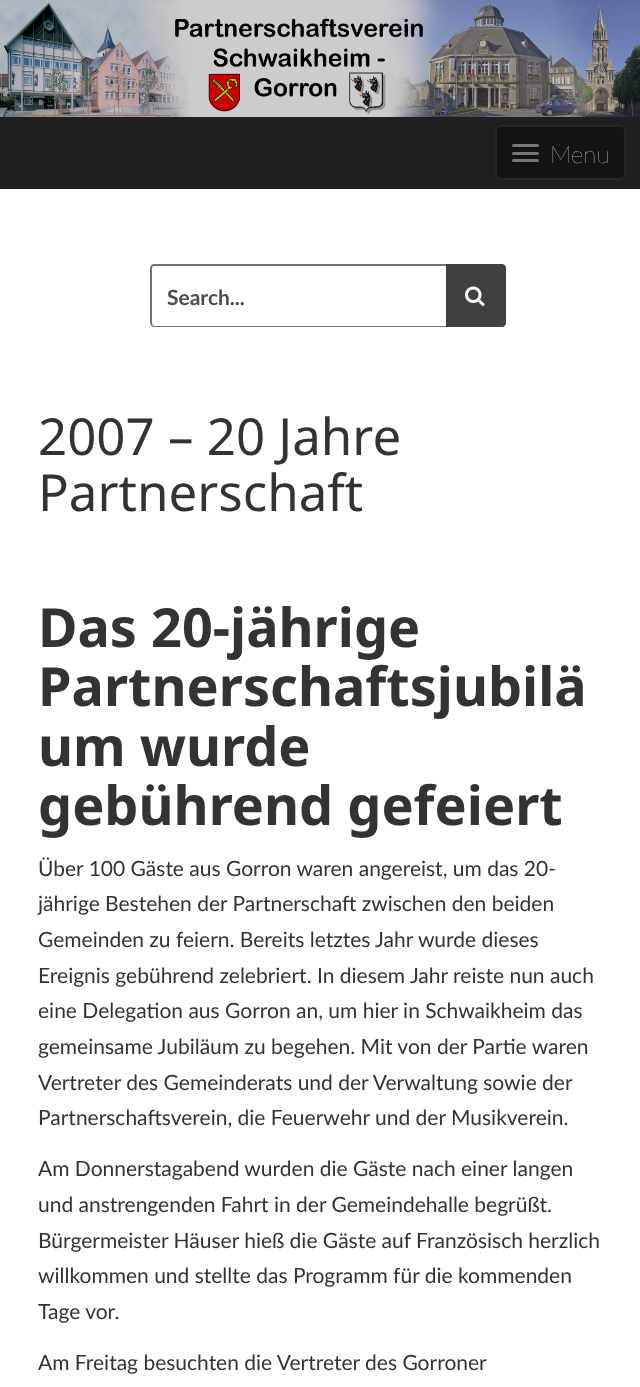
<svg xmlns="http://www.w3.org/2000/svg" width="640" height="1387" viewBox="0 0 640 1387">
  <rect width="100%" height="100%" fill="#fff"/>
  <image x="0" y="0" width="640" height="117" href="img/1.png"/>
  <path d="M0 117h640v72H0z" fill="#1f1f1f"/>
  <rect x="496" y="126" width="129" height="53" rx="5" fill="#141414" stroke="#262626" stroke-width="2"/>
  <path d="M512 147C510.5 150 517.5 149 517.5 149H538C539 148.5 539.5 147 538.5 146L537 147C535 147.5 513 147.5 512 147Z" fill="#0f0f0f"/>
  <rect x="512" y="144" width="27" height="3" rx="1.5" fill="#777"/>
  <path d="M512 154C511.5 157 517 156 517.5 156H537.5C539 156 539.5 154 538.5 153.5L537.5 154.5C536 155 512.5 154.5 512 154Z" fill="#0f0f0f"/>
  <rect x="512" y="152" width="27" height="3" rx="1.5" fill="#777"/>
  <path d="M512 162C510.5 165 517.5 164 517.5 164H538C539 163.5 539.5 162 538.5 161L537 162C535 162.5 513 162.5 512 162Z" fill="#0f0f0f"/>
  <rect x="512" y="159" width="27" height="3" rx="1.5" fill="#777"/>
  <path d="M154 264H446C448 264 450 266 450 268V322C450 325 448 327 446 327H154C152 327 150 325 150 322V268C150 266 152 264 154 264ZM154 266H446C448 266 450 267 450 268V322C450 324 448 326 446 326H154C153 326 152 324 152 322V268C152 267 153 266 154 266Z" fill="#737373" fill-rule="evenodd"/>
  <path d="M446 264H501C504 264 506 266 506 269V322C506 325 504 327 501 327H446Z" fill="#404040"/>
  <path d="M446 264H501C503 264 506 266 506 268V322C506 325 503 327 501 327H446ZM446 266H501C503 266 504 267 504 268V322C504 324 503 326 501 326H446Z" fill="#404040" fill-rule="evenodd"/>
  <image x="465" y="286" width="20" height="20" href="img/2.png"/>
  <text x="550" y="163" font-family="Lato" font-size="24" font-weight="200" fill="#fff">Menu</text>
  <text x="167" y="305" font-family="Lato" font-size="21" font-weight="bold" fill="#4d4d4d">Search...</text>
  <g font-family="Noto Sans" font-size="51" fill="#333">
    <text x="38" y="455">2007 – 20 Jahre</text>
    <text x="38" y="511">Partnerschaft</text>
  </g>
  <g font-family="Noto Sans" font-size="54" font-weight="bold" fill="#333">
    <text x="38" y="647">Das 20-jährige</text>
    <text x="38" y="706">Partnerschaftsjubilä</text>
    <text x="38" y="766">um wurde</text>
    <text x="38" y="825">gebührend gefeiert</text>
  </g>
  <g font-family="Lato" font-size="21" fill="#333">
    <text x="38" y="876">Über 100 Gäste aus Gorron waren angereist, um das 20-</text>
    <text x="38" y="911">jährige Bestehen der Partnerschaft zwischen den beiden</text>
    <text x="38" y="947">Gemeinden zu feiern. Bereits letztes Jahr wurde dieses</text>
    <text x="38" y="983">Ereignis gebührend zelebriert. In diesem Jahr reiste nun auch</text>
    <text x="38" y="1018">eine Delegation aus Gorron an, um hier in Schwaikheim das</text>
    <text x="38" y="1054">gemeinsame Jubiläum zu begehen. Mit von der Partie waren</text>
    <text x="38" y="1090">Vertreter des Gemeinderats und der Verwaltung sowie der</text>
    <text x="38" y="1125">Partnerschaftsverein, die Feuerwehr und der Musikverein.</text>
    <text x="38" y="1176">Am Donnerstagabend wurden die Gäste nach einer langen</text>
    <text x="38" y="1212">und anstrengenden Fahrt in der Gemeindehalle begrüßt.</text>
    <text x="38" y="1248">Bürgermeister Häuser hieß die Gäste auf Französisch herzlich</text>
    <text x="38" y="1283">willkommen und stellte das Programm für die kommenden</text>
    <text x="38" y="1319">Tage vor.</text>
    <text x="38" y="1370">Am Freitag besuchten die Vertreter des Gorroner</text>
  </g>
</svg>
